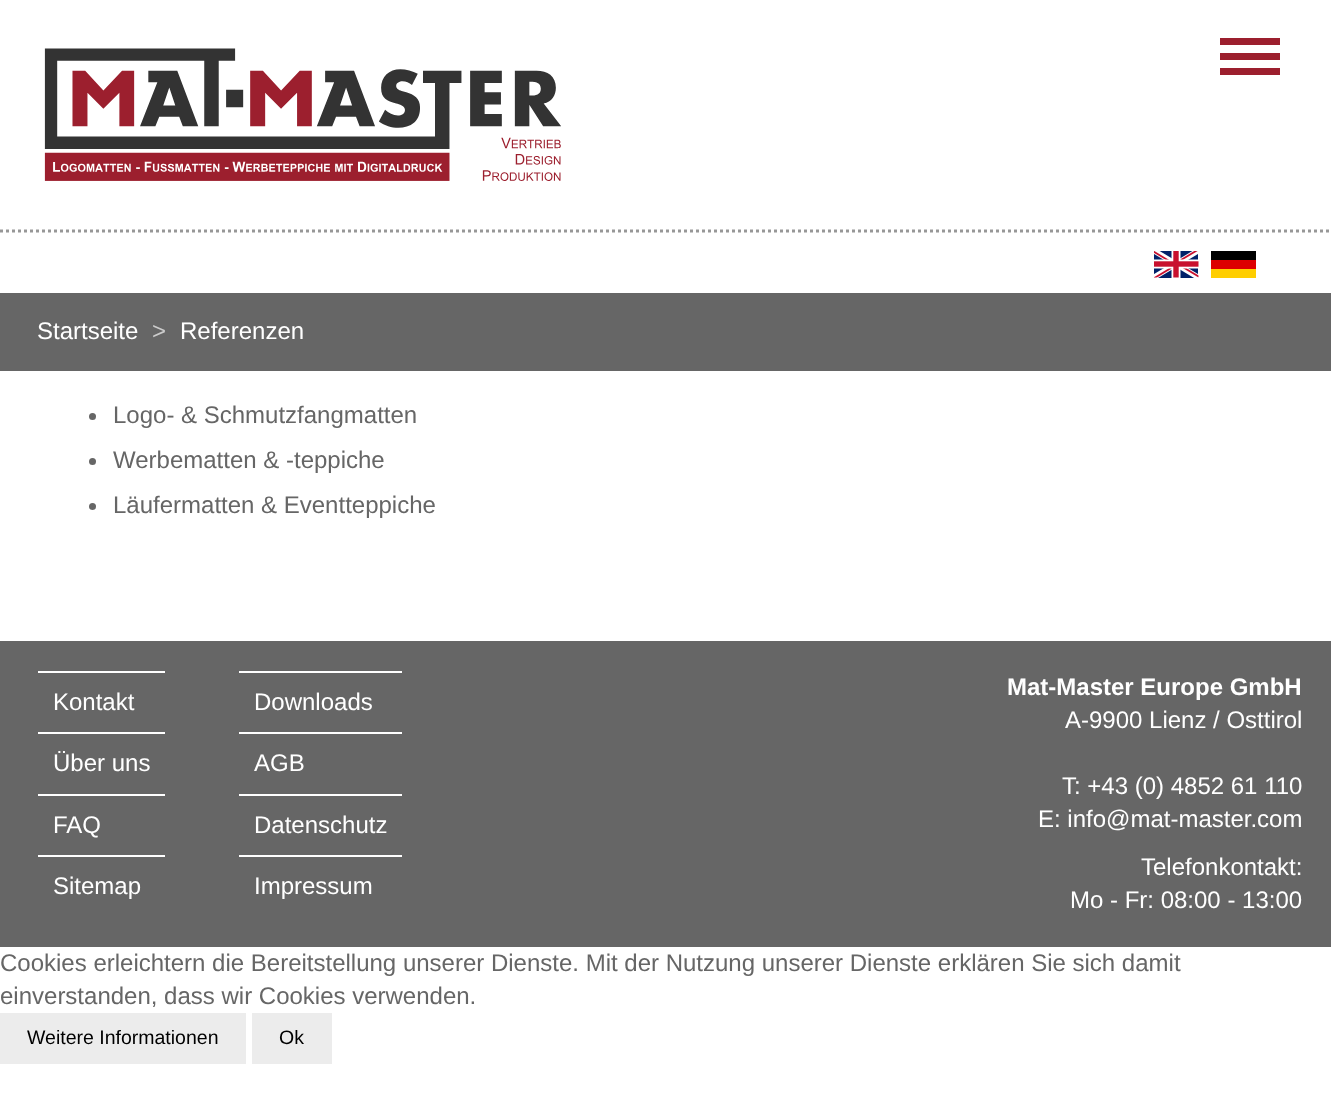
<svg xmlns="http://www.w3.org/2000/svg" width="1331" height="1104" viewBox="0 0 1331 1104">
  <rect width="100%" height="100%" fill="#fff"/>
  <path d="M1220 38h60v7H1220z" fill="#9c1f2e"/>
  <path d="M1220 53h60v7H1220z" fill="#9c1f2e"/>
  <path d="M1220 68h60v7H1220z" fill="#9c1f2e"/>
  <path d="M0 231H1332" fill="none" stroke="#979797" stroke-width="3" stroke-dasharray="3 3"/>
  <image x="44" y="48" width="517" height="133" href="img/1.png"/>
  <image x="1154" y="251" width="45" height="27" href="img/2.png"/>
  <path d="M1211 251h45v9H1211z" fill="#000"/>
  <path d="M1211 260h45v9H1211z" fill="#d00"/>
  <path d="M1211 269h45v9H1211z" fill="#ffce00"/>
  <path d="M0 293h1331v78H0z" fill="#666"/>
  <circle cx="92.5" cy="416.5" r="3.5" fill="#666"/>
  <circle cx="92.5" cy="461.5" r="3.5" fill="#666"/>
  <circle cx="92.5" cy="506.5" r="3.5" fill="#666"/>
  <path d="M0 641h1331v306H0z" fill="#666"/>
  <path d="M38 671h127v2H38z" fill="#fff"/>
  <path d="M38 732h127v2H38z" fill="#fff"/>
  <path d="M38 794h127v2H38z" fill="#fff"/>
  <path d="M38 855h127v2H38z" fill="#fff"/>
  <path d="M239 671h163v2H239z" fill="#fff"/>
  <path d="M239 732h163v2H239z" fill="#fff"/>
  <path d="M239 794h163v2H239z" fill="#fff"/>
  <path d="M239 855h163v2H239z" fill="#fff"/>
  <path d="M0 1013h246v51H0z" fill="#ececec"/>
  <path d="M252 1013h80v51H252z" fill="#ececec"/>
  <text x="37" y="339" font-family="Liberation Sans" font-size="24" fill="#fff">Startseite</text>
  <text x="152" y="339" font-family="Liberation Sans" font-size="24" fill="#ccc">&gt;</text>
  <text x="180" y="339" font-family="Liberation Sans" font-size="24" fill="#fff">Referenzen</text>
  <g font-family="Liberation Sans" font-size="24" fill="#666">
    <text x="113" y="423">Logo- &amp; Schmutzfangmatten</text>
    <text x="113" y="468">Werbematten &amp; -teppiche</text>
    <text x="113" y="513">Läufermatten &amp; Eventteppiche</text>
  </g>
  <g font-family="Liberation Sans" font-size="24" fill="#fff">
    <text x="53" y="710">Kontakt</text>
    <text x="53" y="771">Über uns</text>
    <text x="53" y="833">FAQ</text>
    <text x="53" y="894">Sitemap</text>
    <text x="254" y="710">Downloads</text>
    <text x="254" y="771">AGB</text>
    <text x="254" y="833">Datenschutz</text>
    <text x="254" y="894">Impressum</text>
  </g>
  <text x="1007" y="695" font-family="Liberation Sans" font-size="24" font-weight="bold" fill="#fff">Mat-Master Europe GmbH</text>
  <g font-family="Liberation Sans" font-size="24" fill="#fff">
    <text x="1065" y="728">A-9900 Lienz / Osttirol</text>
    <text x="1062" y="794">T: +43 (0) 4852 61 110</text>
    <text x="1038" y="827">E: info@mat-master.com</text>
    <text x="1141" y="875">Telefonkontakt:</text>
    <text x="1070" y="908">Mo - Fr: 08:00 - 13:00</text>
  </g>
  <g font-family="Liberation Sans" font-size="24" fill="#666">
    <text x="0" y="971">Cookies erleichtern die Bereitstellung unserer Dienste. Mit der Nutzung unserer Dienste erklären Sie sich damit</text>
    <text x="0" y="1004">einverstanden, dass wir Cookies verwenden.</text>
  </g>
  <g font-family="Liberation Sans" font-size="19.5" fill="#000">
    <text x="27" y="1044">Weitere Informationen</text>
    <text x="279" y="1044">Ok</text>
  </g>
</svg>
